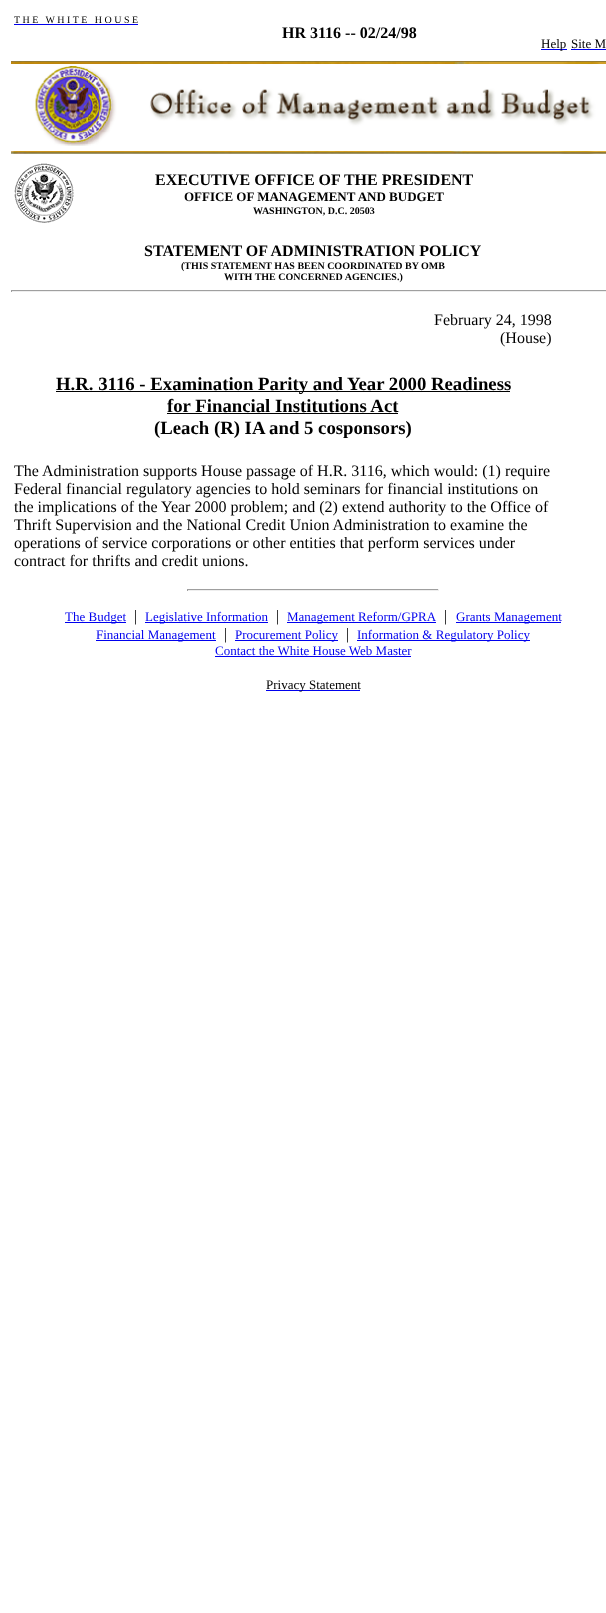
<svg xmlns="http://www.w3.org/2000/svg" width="606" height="1613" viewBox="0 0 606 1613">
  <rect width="100%" height="100%" fill="#fff"/>
  <path d="M14 24h124v1H14z" fill="#00e"/>
  <path d="M541 49h26v1H541z" fill="#00e"/>
  <path d="M571 49h35v1H571z" fill="#00e"/>
  <image x="11" y="61" width="595" height="85" href="img/1.png"/>
  <image x="11" y="151" width="595" height="3" href="img/2.png"/>
  <image x="14" y="163" width="60" height="60" href="img/3.png"/>
  <path d="M11 290h595v1H11z" fill="#9f9f9f"/>
  <path d="M11 291h595v1H11z" fill="#eee"/>
  <path d="M11 290h1v2H11z" fill="#9f9f9f"/>
  <path d="M56 391h454v1H56z" fill="#000"/>
  <path d="M167 413h231v1H167z" fill="#000"/>
  <path d="M187 589h252v1H187z" fill="#9f9f9f"/>
  <path d="M438 589h1v2H438z" fill="#eee"/>
  <path d="M187 590h252v1H187z" fill="#eee"/>
  <path d="M187 589h1v2H187z" fill="#9f9f9f"/>
  <path d="M65 622h61v1H65z" fill="#00e"/>
  <path d="M145 622h123v1H145z" fill="#00e"/>
  <path d="M287 622h149v1H287z" fill="#00e"/>
  <path d="M456 622h105v1H456z" fill="#00e"/>
  <path d="M96 640h120v1H96z" fill="#00e"/>
  <path d="M235 640h103v1H235z" fill="#00e"/>
  <path d="M357 640h173v1H357z" fill="#00e"/>
  <path d="M215 656h196v1H215z" fill="#00e"/>
  <path d="M266 690h94v1H266z" fill="#00e"/>
  <text x="14" y="23" font-family="Liberation Serif" font-size="10" fill="#000" xml:space="preserve">T H E   W H I T E   H O U S E</text>
  <text x="282" y="38" font-family="Liberation Serif" font-size="16" font-weight="bold" fill="#000">HR 3116 -- 02/24/98</text>
  <g font-family="Liberation Serif" font-size="13" fill="#000">
    <text x="541" y="48">Help</text>
    <text x="571" y="48">Site M</text>
  </g>
  <text x="155" y="185" font-family="Liberation Serif" font-size="16" font-weight="bold" fill="#000">EXECUTIVE OFFICE OF THE PRESIDENT</text>
  <text x="184" y="201" font-family="Liberation Serif" font-size="13" font-weight="bold" fill="#000">OFFICE OF MANAGEMENT AND BUDGET</text>
  <text x="253" y="214" font-family="Liberation Serif" font-size="10" font-weight="bold" fill="#000">WASHINGTON, D.C. 20503</text>
  <text x="144" y="256" font-family="Liberation Serif" font-size="16" font-weight="bold" fill="#000">STATEMENT OF ADMINISTRATION POLICY</text>
  <g font-family="Liberation Serif" font-size="10" font-weight="bold" fill="#000">
    <text x="181" y="269">(THIS STATEMENT HAS BEEN COORDINATED BY OMB</text>
    <text x="224" y="280">WITH THE CONCERNED AGENCIES.)</text>
  </g>
  <g font-family="Liberation Serif" font-size="16" fill="#000">
    <text x="434" y="325">February 24, 1998</text>
    <text x="500" y="343">(House)</text>
  </g>
  <g font-family="Liberation Serif" font-size="18.75" font-weight="bold" fill="#000">
    <text x="56" y="390">H.R. 3116 - Examination Parity and Year 2000 Readiness</text>
    <text x="167" y="412">for Financial Institutions Act</text>
    <text x="154" y="434">(Leach (R) IA and 5 cosponsors)</text>
  </g>
  <g font-family="Liberation Serif" font-size="16" fill="#000">
    <text x="14" y="476">The Administration supports House passage of H.R. 3116, which would: (1) require</text>
    <text x="14" y="494">Federal financial regulatory agencies to hold seminars for financial institutions on</text>
    <text x="14" y="512">the implications of the Year 2000 problem; and (2) extend authority to the Office of</text>
    <text x="14" y="530">Thrift Supervision and the National Credit Union Administration to examine the</text>
    <text x="14" y="548">operations of service corporations or other entities that perform services under</text>
    <text x="14" y="566">contract for thrifts and credit unions.</text>
  </g>
  <text x="65" y="621" font-family="Liberation Serif" font-size="13" fill="#00e">The Budget</text>
  <text x="134" y="621" font-family="Liberation Serif" font-size="16" fill="#000">|</text>
  <text x="145" y="621" font-family="Liberation Serif" font-size="13" fill="#00e">Legislative Information</text>
  <text x="276" y="621" font-family="Liberation Serif" font-size="16" fill="#000">|</text>
  <text x="287" y="621" font-family="Liberation Serif" font-size="13" fill="#00e">Management Reform/GPRA</text>
  <text x="444" y="621" font-family="Liberation Serif" font-size="16" fill="#000">|</text>
  <g font-family="Liberation Serif" font-size="13" fill="#00e">
    <text x="456" y="621">Grants Management</text>
    <text x="96" y="639">Financial Management</text>
  </g>
  <text x="224" y="639" font-family="Liberation Serif" font-size="16" fill="#000">|</text>
  <text x="235" y="639" font-family="Liberation Serif" font-size="13" fill="#00e">Procurement Policy</text>
  <text x="346" y="639" font-family="Liberation Serif" font-size="16" fill="#000">|</text>
  <g font-family="Liberation Serif" font-size="13" fill="#00e">
    <text x="357" y="639">Information &amp; Regulatory Policy</text>
    <text x="215" y="655">Contact the White House Web Master</text>
  </g>
  <text x="266" y="689" font-family="Liberation Serif" font-size="13" fill="#000">Privacy Statement</text>
</svg>
